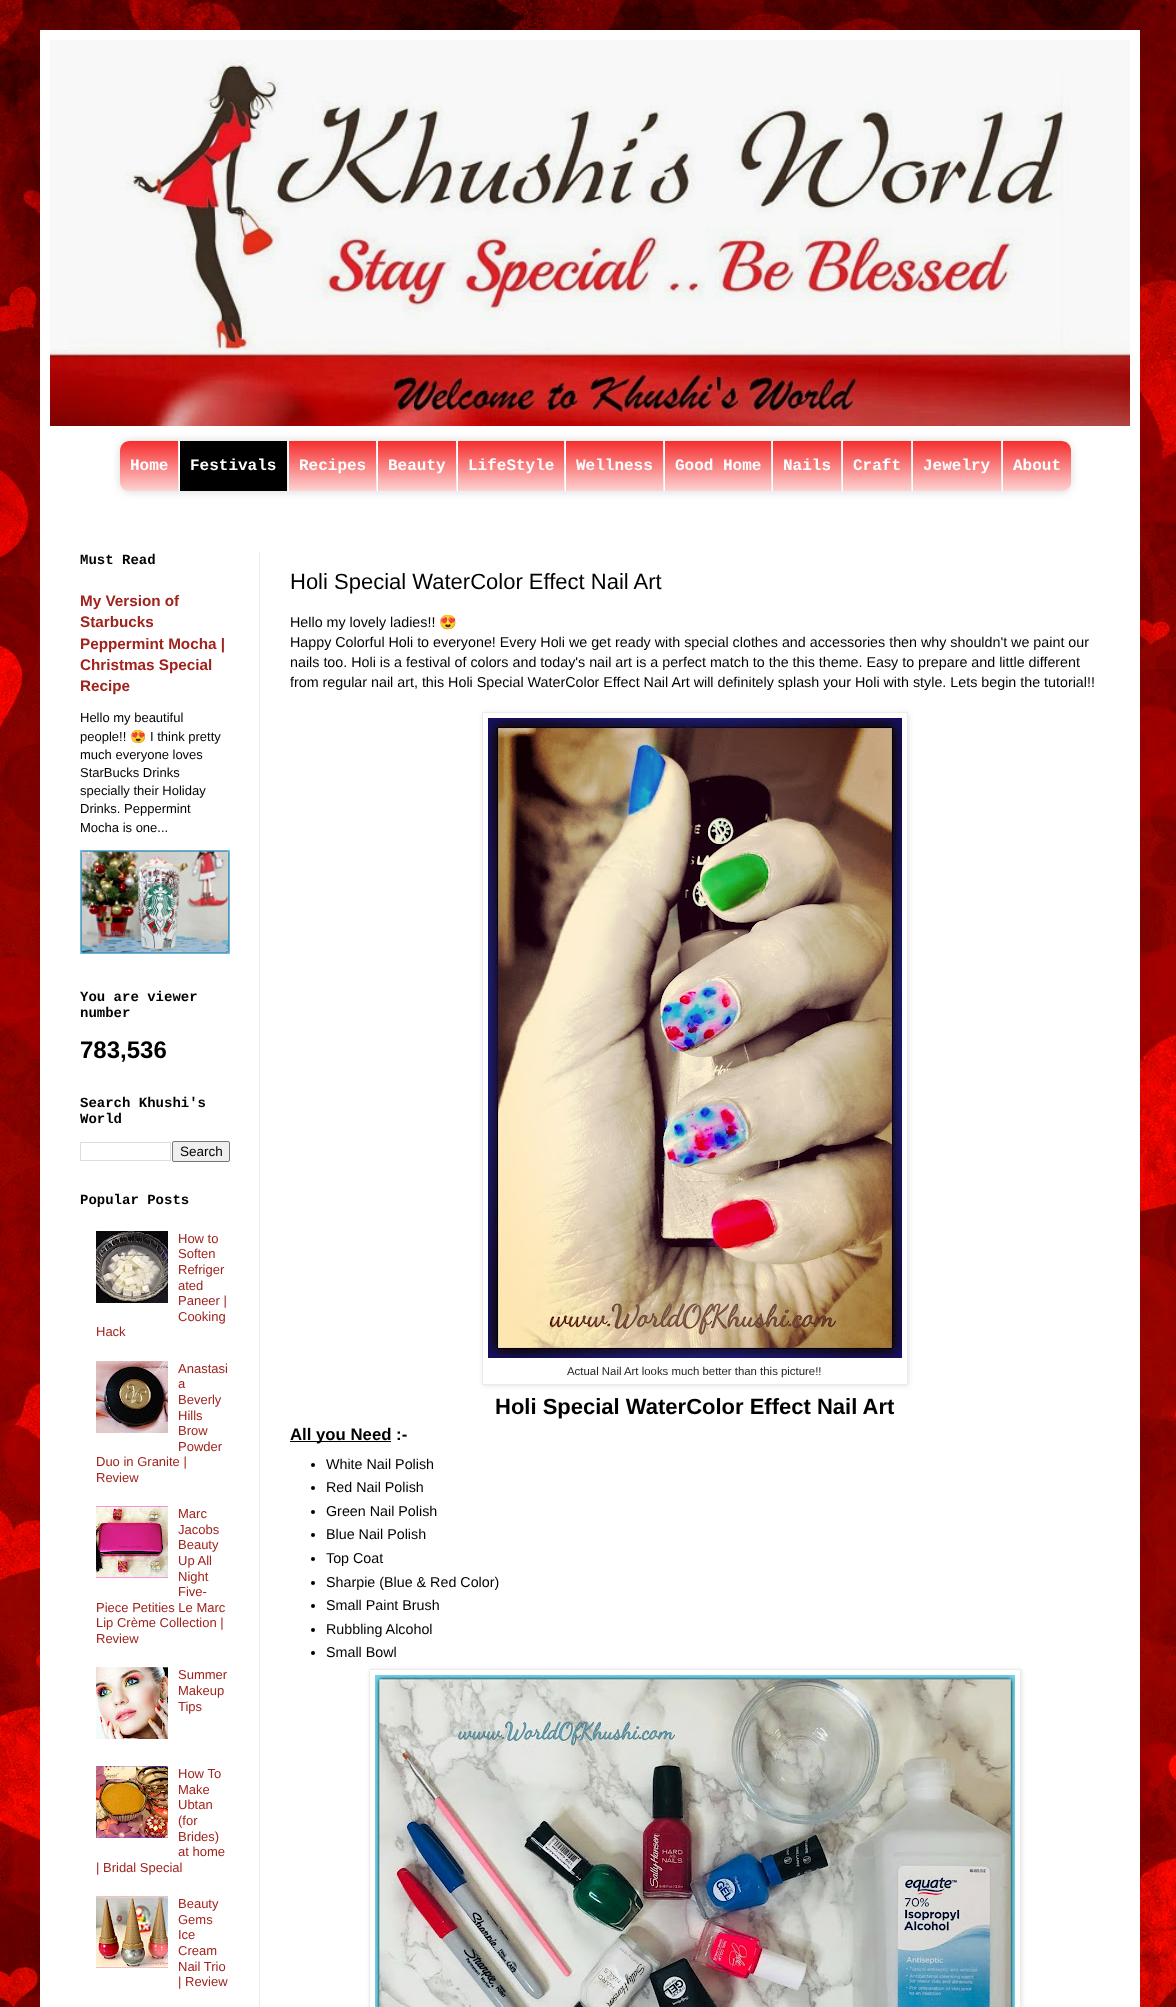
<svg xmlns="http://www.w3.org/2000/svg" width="1176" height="2007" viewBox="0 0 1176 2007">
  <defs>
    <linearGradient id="g1" gradientUnits="userSpaceOnUse" x1="596" y1="441" x2="596" y2="491"><stop offset="0" stop-color="#f62d2d"/><stop offset="1" stop-color="#fed3d3"/></linearGradient>
    <clipPath id="clip1"><path d="M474 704H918V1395H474ZM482 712H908V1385H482Z" clip-rule="evenodd"/></clipPath>
    <clipPath id="clip2"><path d="M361 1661H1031V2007H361ZM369 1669H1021V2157H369Z" clip-rule="evenodd"/></clipPath>
  </defs>
  <rect width="100%" height="100%" fill="#fff"/>
  <image x="0" y="0" width="1176" height="2007" href="img/1.png"/>
  <path d="M40 30h1100v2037H40z" fill="#00000026" filter="blur(20px)"/>
  <path d="M40 30h1100v1977H40z" fill="#fff"/>
  <image x="50" y="40" width="1080" height="386" href="img/2.png"/>
  <rect x="120" y="441" width="951" height="51" rx="10" fill="#00000026" filter="blur(4.5px)"/>
  <path d="M130 441H1061C1067 441 1071 445 1071 451V482C1071 487 1067 491 1061 491H130C124 491 120 487 120 482V451C120 445 124 441 130 441Z" fill="url(#g1)"/>
  <path d="M125 491h941v1H125z" fill="#eee"/>
  <path d="M178 441h1v50H178z" fill="#eee"/>
  <path d="M180 441h107v50H180z" fill="#000"/>
  <path d="M287 441h1v50H287z" fill="#eee"/>
  <path d="M179 441h1v50H179z" fill="#fff"/>
  <path d="M376 441h1v50H376z" fill="#eee"/>
  <path d="M288 441h1v50H288z" fill="#fff"/>
  <path d="M456 441h1v50H456z" fill="#eee"/>
  <path d="M377 441h1v50H377z" fill="#fff"/>
  <path d="M564 441h1v50H564z" fill="#eee"/>
  <path d="M457 441h1v50H457z" fill="#fff"/>
  <path d="M663 441h1v50H663z" fill="#eee"/>
  <path d="M565 441h1v50H565z" fill="#fff"/>
  <path d="M771 441h1v50H771z" fill="#eee"/>
  <path d="M664 441h1v50H664z" fill="#fff"/>
  <path d="M841 441h1v50H841z" fill="#eee"/>
  <path d="M772 441h1v50H772z" fill="#fff"/>
  <path d="M911 441h1v50H911z" fill="#eee"/>
  <path d="M842 441h1v50H842z" fill="#fff"/>
  <path d="M1001 441h1v50H1001z" fill="#eee"/>
  <path d="M912 441h1v50H912z" fill="#fff"/>
  <path d="M1002 441h1v50H1002z" fill="#fff"/>
  <path d="M259 552h1v1455H259z" fill="#ebebeb"/>
  <image x="80" y="850" width="150" height="104" href="img/3.png"/>
  <path d="M80.5 1142.5h90v18H80.5z" fill="none" stroke="#ddd"/>
  <rect x="172.5" y="1141.5" width="57" height="20" rx="1.5" fill="#efefef" stroke="#767676"/>
  <image x="96" y="1231" width="72" height="72" href="img/4.png"/>
  <image x="96" y="1361" width="72" height="72" href="img/5.png"/>
  <image x="96" y="1506" width="72" height="72" href="img/6.png"/>
  <image x="96" y="1667" width="72" height="72" href="img/7.png"/>
  <image x="96" y="1766" width="72" height="72" href="img/8.png"/>
  <image x="96" y="1896" width="72" height="72" href="img/9.png"/>
  <g clip-path="url(#clip1)">
    <path d="M483 713h426v673H483z" fill="#0000001a" filter="blur(2.5px)"/>
  </g>
  <path d="M482.5 712.5h425v672H482.5z" fill="none" stroke="#ebebeb"/>
  <image x="488" y="718" width="414" height="640" href="img/10.png"/>
  <path d="M290 1441h101v1H290z" fill="#000"/>
  <circle cx="313" cy="1465" r="2" fill="#000"/>
  <circle cx="313" cy="1488" r="2" fill="#000"/>
  <circle cx="313" cy="1512" r="2" fill="#000"/>
  <circle cx="313" cy="1535" r="2" fill="#000"/>
  <circle cx="313" cy="1559" r="2" fill="#000"/>
  <circle cx="313" cy="1583" r="2" fill="#000"/>
  <circle cx="313" cy="1606" r="2" fill="#000"/>
  <circle cx="313" cy="1630" r="2" fill="#000"/>
  <circle cx="313" cy="1653" r="2" fill="#000"/>
  <g clip-path="url(#clip2)">
    <path d="M370 1670h652v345H370z" fill="#0000001a" filter="blur(2.5px)"/>
  </g>
  <path d="M369.5 1669.5h651v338H369.5z" fill="none" stroke="#ebebeb"/>
  <image x="375" y="1675" width="640" height="332" href="img/11.png"/>
  <g font-family="Liberation Mono" font-size="16" font-weight="bold" fill="#fff">
    <text x="130" y="470">Home</text>
    <text x="190" y="470">Festivals</text>
    <text x="299" y="470">Recipes</text>
    <text x="388" y="470">Beauty</text>
    <text x="468" y="470">LifeStyle</text>
    <text x="576" y="470">Wellness</text>
    <text x="675" y="470">Good Home</text>
    <text x="783" y="470">Nails</text>
    <text x="853" y="470">Craft</text>
    <text x="923" y="470">Jewelry</text>
    <text x="1013" y="470">About</text>
  </g>
  <text x="80" y="564" font-family="Liberation Mono" font-size="14" font-weight="bold" fill="#000">Must Read</text>
  <g font-family="Liberation Sans" font-size="15.25" font-weight="bold" fill="#9f221d">
    <text x="80" y="606">My Version of</text>
    <text x="80" y="627">Starbucks</text>
    <text x="80" y="649">Peppermint Mocha |</text>
    <text x="80" y="670">Christmas Special</text>
    <text x="80" y="691">Recipe</text>
  </g>
  <g font-family="Liberation Sans" font-size="13" fill="#000">
    <text x="80" y="722">Hello my beautiful</text>
    <text x="80" y="741">people!!</text>
  </g>
  <text x="130" y="741" font-family="Noto Color Emoji" font-size="13" fill="#000">😍</text>
  <g font-family="Liberation Sans" font-size="13" fill="#000">
    <text x="150" y="741">I think pretty</text>
    <text x="80" y="759">much everyone loves</text>
    <text x="80" y="777">StarBucks Drinks</text>
    <text x="80" y="795">specially their Holiday</text>
    <text x="80" y="813">Drinks. Peppermint</text>
    <text x="80" y="832">Mocha is one...</text>
  </g>
  <g font-family="Liberation Mono" font-size="14" font-weight="bold" fill="#000">
    <text x="80" y="1001">You are viewer</text>
    <text x="80" y="1017">number</text>
  </g>
  <text x="80" y="1058" font-family="Liberation Sans" font-size="24" font-weight="bold" fill="#000">783,536</text>
  <g font-family="Liberation Mono" font-size="14" font-weight="bold" fill="#000">
    <text x="80" y="1107">Search Khushi's</text>
    <text x="80" y="1123">World</text>
  </g>
  <text x="180" y="1156" font-family="Liberation Sans" font-size="13.5" fill="#000">Search</text>
  <text x="80" y="1204" font-family="Liberation Mono" font-size="14" font-weight="bold" fill="#000">Popular Posts</text>
  <g font-family="Liberation Sans" font-size="13" fill="#9f221d">
    <text x="178" y="1243">How to</text>
    <text x="178" y="1258">Soften</text>
    <text x="178" y="1274">Refriger</text>
    <text x="178" y="1290">ated</text>
    <text x="178" y="1305">Paneer |</text>
    <text x="178" y="1321">Cooking</text>
    <text x="96" y="1336">Hack</text>
    <text x="178" y="1373">Anastasi</text>
    <text x="178" y="1388">a</text>
    <text x="178" y="1404">Beverly</text>
    <text x="178" y="1420">Hills</text>
    <text x="178" y="1435">Brow</text>
    <text x="178" y="1451">Powder</text>
    <text x="96" y="1466">Duo in Granite |</text>
    <text x="96" y="1482">Review</text>
    <text x="178" y="1518">Marc</text>
    <text x="178" y="1534">Jacobs</text>
    <text x="178" y="1549">Beauty</text>
    <text x="178" y="1565">Up All</text>
    <text x="178" y="1581">Night</text>
    <text x="178" y="1596">Five-</text>
    <text x="96" y="1612">Piece Petities Le Marc</text>
    <text x="96" y="1627">Lip Crème Collection |</text>
    <text x="96" y="1643">Review</text>
    <text x="178" y="1679">Summer</text>
    <text x="178" y="1695">Makeup</text>
    <text x="178" y="1711">Tips</text>
    <text x="178" y="1778">How To</text>
    <text x="178" y="1794">Make</text>
    <text x="178" y="1809">Ubtan</text>
    <text x="178" y="1825">(for</text>
    <text x="178" y="1841">Brides)</text>
    <text x="178" y="1856">at home</text>
    <text x="96" y="1872">| Bridal Special</text>
    <text x="178" y="1908">Beauty</text>
    <text x="178" y="1924">Gems</text>
    <text x="178" y="1939">Ice</text>
    <text x="178" y="1955">Cream</text>
    <text x="178" y="1971">Nail Trio</text>
    <text x="178" y="1986">| Review</text>
  </g>
  <text x="290" y="589" font-family="Liberation Sans" font-size="22" fill="#000">Holi Special WaterColor Effect Nail Art</text>
  <text x="290" y="627" font-family="Liberation Sans" font-size="14.3" fill="#000">Hello my lovely ladies!!</text>
  <text x="439" y="627" font-family="Noto Color Emoji" font-size="14.3" fill="#000">😍</text>
  <g font-family="Liberation Sans" font-size="14.3" fill="#000">
    <text x="290" y="647">Happy Colorful Holi to everyone! Every Holi we get ready with special clothes and accessories then why shouldn't we paint our</text>
    <text x="290" y="667">nails too. Holi is a festival of colors and today's nail art is a perfect match to the this theme. Easy to prepare and little different</text>
    <text x="290" y="687">from regular nail art, this Holi Special WaterColor Effect Nail Art will definitely splash your Holi with style. Lets begin the tutorial!!</text>
  </g>
  <text x="567" y="1375" font-family="Liberation Sans" font-size="11.4" fill="#222">Actual Nail Art looks much better than this picture!!</text>
  <text x="495" y="1414" font-family="Liberation Sans" font-size="22" font-weight="bold" fill="#000">Holi Special WaterColor Effect Nail Art</text>
  <text x="290" y="1440" font-family="Liberation Sans" font-size="16.75" font-weight="bold" fill="#000">All you Need :-</text>
  <g font-family="Liberation Sans" font-size="14.3" fill="#000">
    <text x="326" y="1469">White Nail Polish</text>
    <text x="326" y="1492">Red Nail Polish</text>
    <text x="326" y="1516">Green Nail Polish</text>
    <text x="326" y="1539">Blue Nail Polish</text>
    <text x="326" y="1563">Top Coat</text>
    <text x="326" y="1587">Sharpie (Blue &amp; Red Color)</text>
    <text x="326" y="1610">Small Paint Brush</text>
    <text x="326" y="1634">Rubbling Alcohol</text>
    <text x="326" y="1657">Small Bowl</text>
  </g>
</svg>
